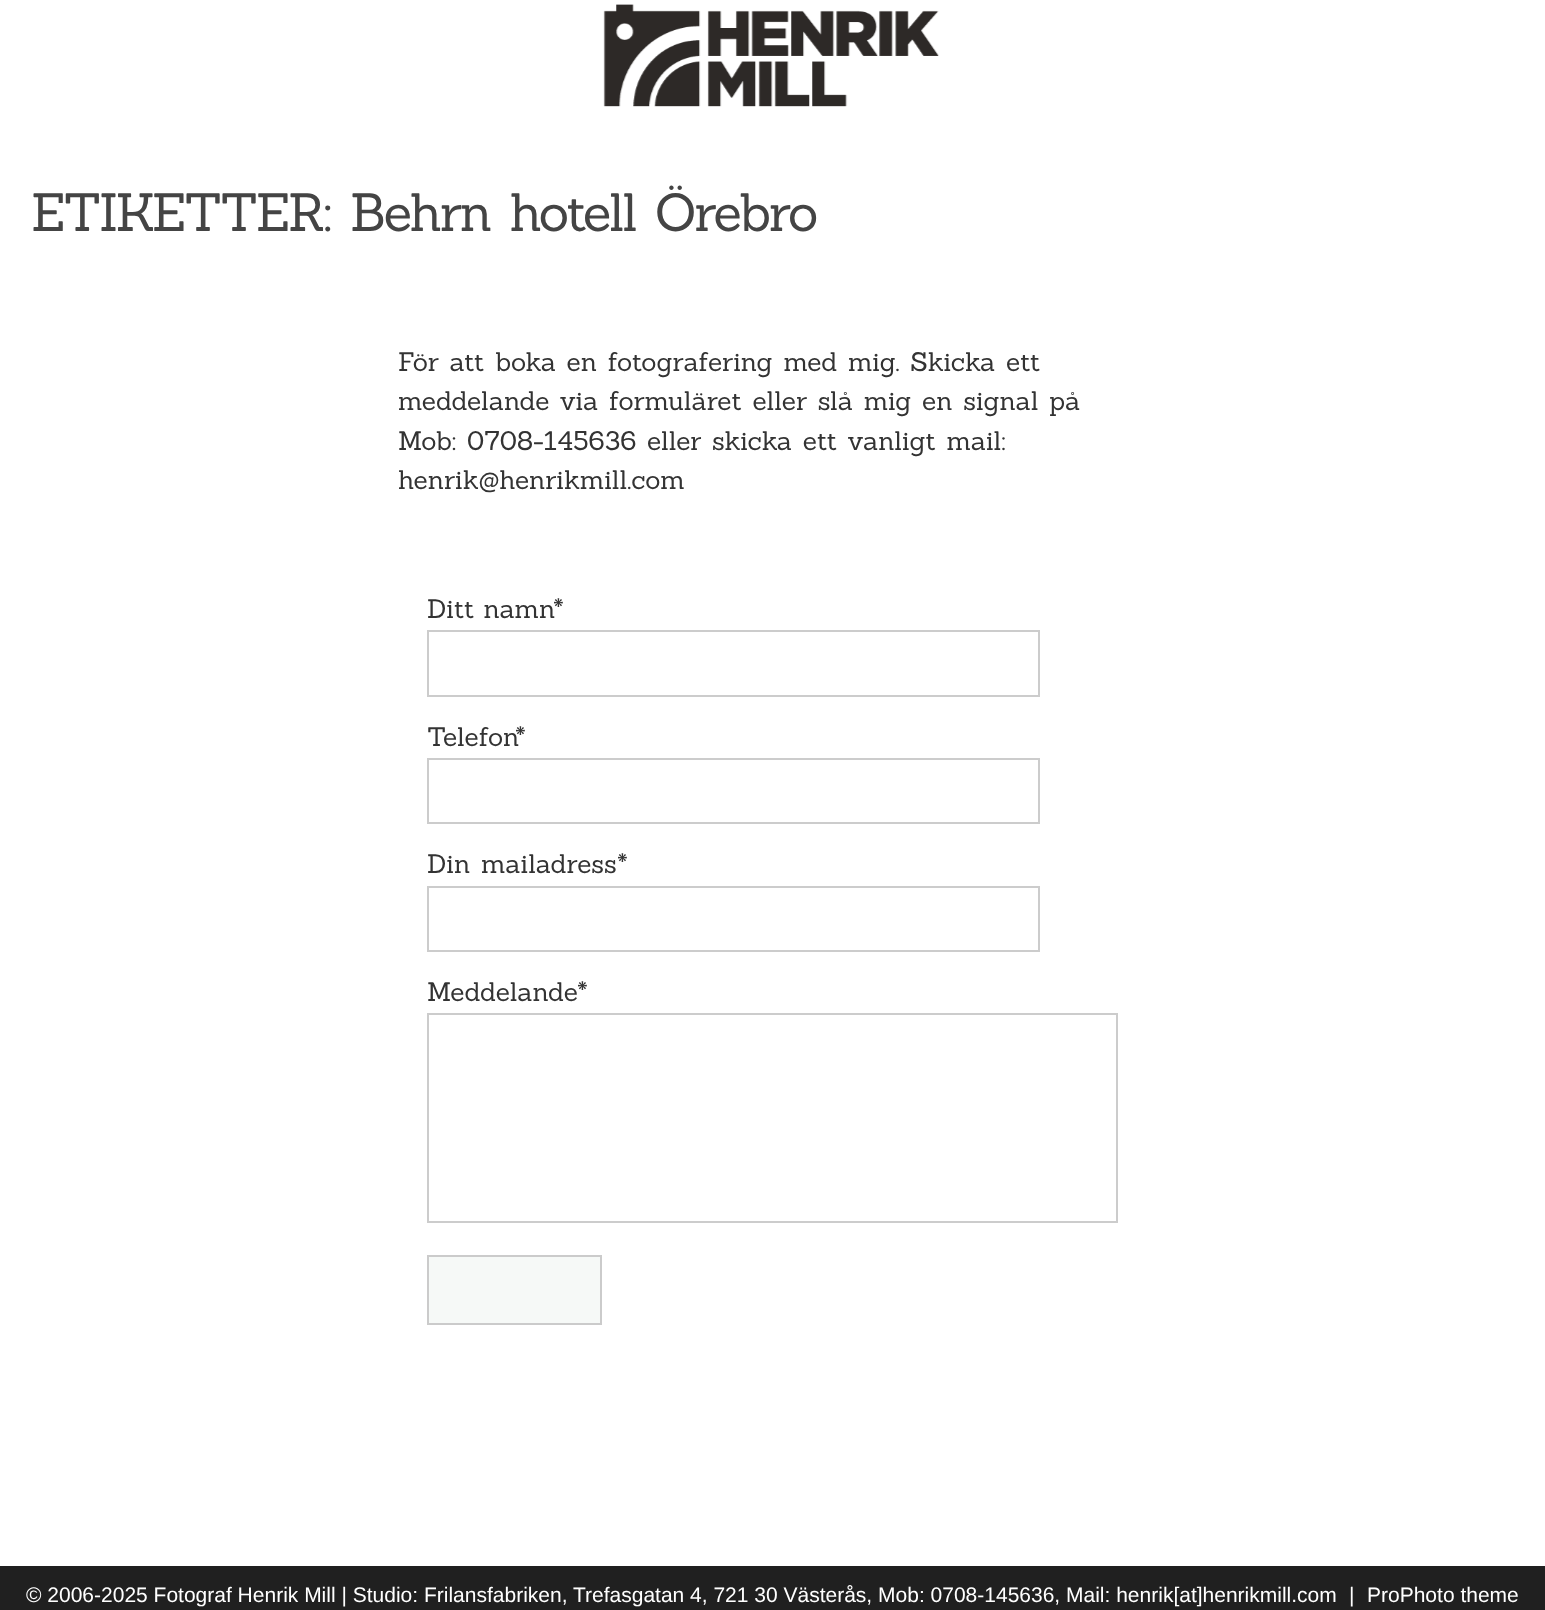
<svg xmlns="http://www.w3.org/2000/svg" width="1545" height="1610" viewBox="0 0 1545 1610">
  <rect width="100%" height="100%" fill="#fff"/>
  <image x="603" y="4" width="336" height="103" href="img/1.png"/>
  <path d="M428 631h611v65H428z" fill="none" stroke="#ccc" stroke-width="2"/>
  <path d="M428 759h611v64H428z" fill="none" stroke="#ccc" stroke-width="2"/>
  <path d="M428 887h611v64H428z" fill="none" stroke="#ccc" stroke-width="2"/>
  <path d="M428 1014h689v208H428z" fill="none" stroke="#ccc" stroke-width="2"/>
  <path d="M428 1256h173v68H428z" fill="#f6f9f7" stroke="#cbcbcb" stroke-width="2"/>
  <path d="M0 1566h1545v44H0z" fill="#202020"/>
  <g font-family="Sanchez" font-size="52.5" letter-spacing="-2.1" fill="#444">
    <text x="31" y="231">ETIKETTER:</text>
    <text x="350" y="231" word-spacing="5">Behrn hotell Örebro</text>
  </g>
  <g font-family="Sanchez" font-size="26.25" fill="#333">
    <text x="398" y="371" word-spacing="2.5">För att boka en fotografering med mig. Skicka ett</text>
    <text x="398" y="410" word-spacing="2.5">meddelande via formuläret eller slå mig en signal på</text>
    <text x="398" y="450" word-spacing="2.5">Mob: 0708-145636 eller skicka ett vanligt mail:</text>
    <text x="398" y="489">henrik@henrikmill.com</text>
    <text x="427" y="618" word-spacing="1">Ditt namn</text>
    <text x="553" y="618">*</text>
    <text x="427" y="746">Telefon</text>
    <text x="515" y="746">*</text>
    <text x="427" y="873" word-spacing="2.5">Din mailadress</text>
    <text x="617" y="873">*</text>
    <text x="427" y="1001">Meddelande</text>
    <text x="577" y="1001">*</text>
  </g>
  <g font-family="Liberation Sans" font-size="21" fill="#fff">
    <text x="26" y="1602">© 2006-2025 Fotograf Henrik Mill | Studio: Frilansfabriken, Trefasgatan 4, 721 30 Västerås, Mob: 0708-145636, Mail: henrik[at]henrikmill.com</text>
    <text x="1349" y="1602">|</text>
    <text x="1367" y="1602">ProPhoto theme</text>
  </g>
</svg>
